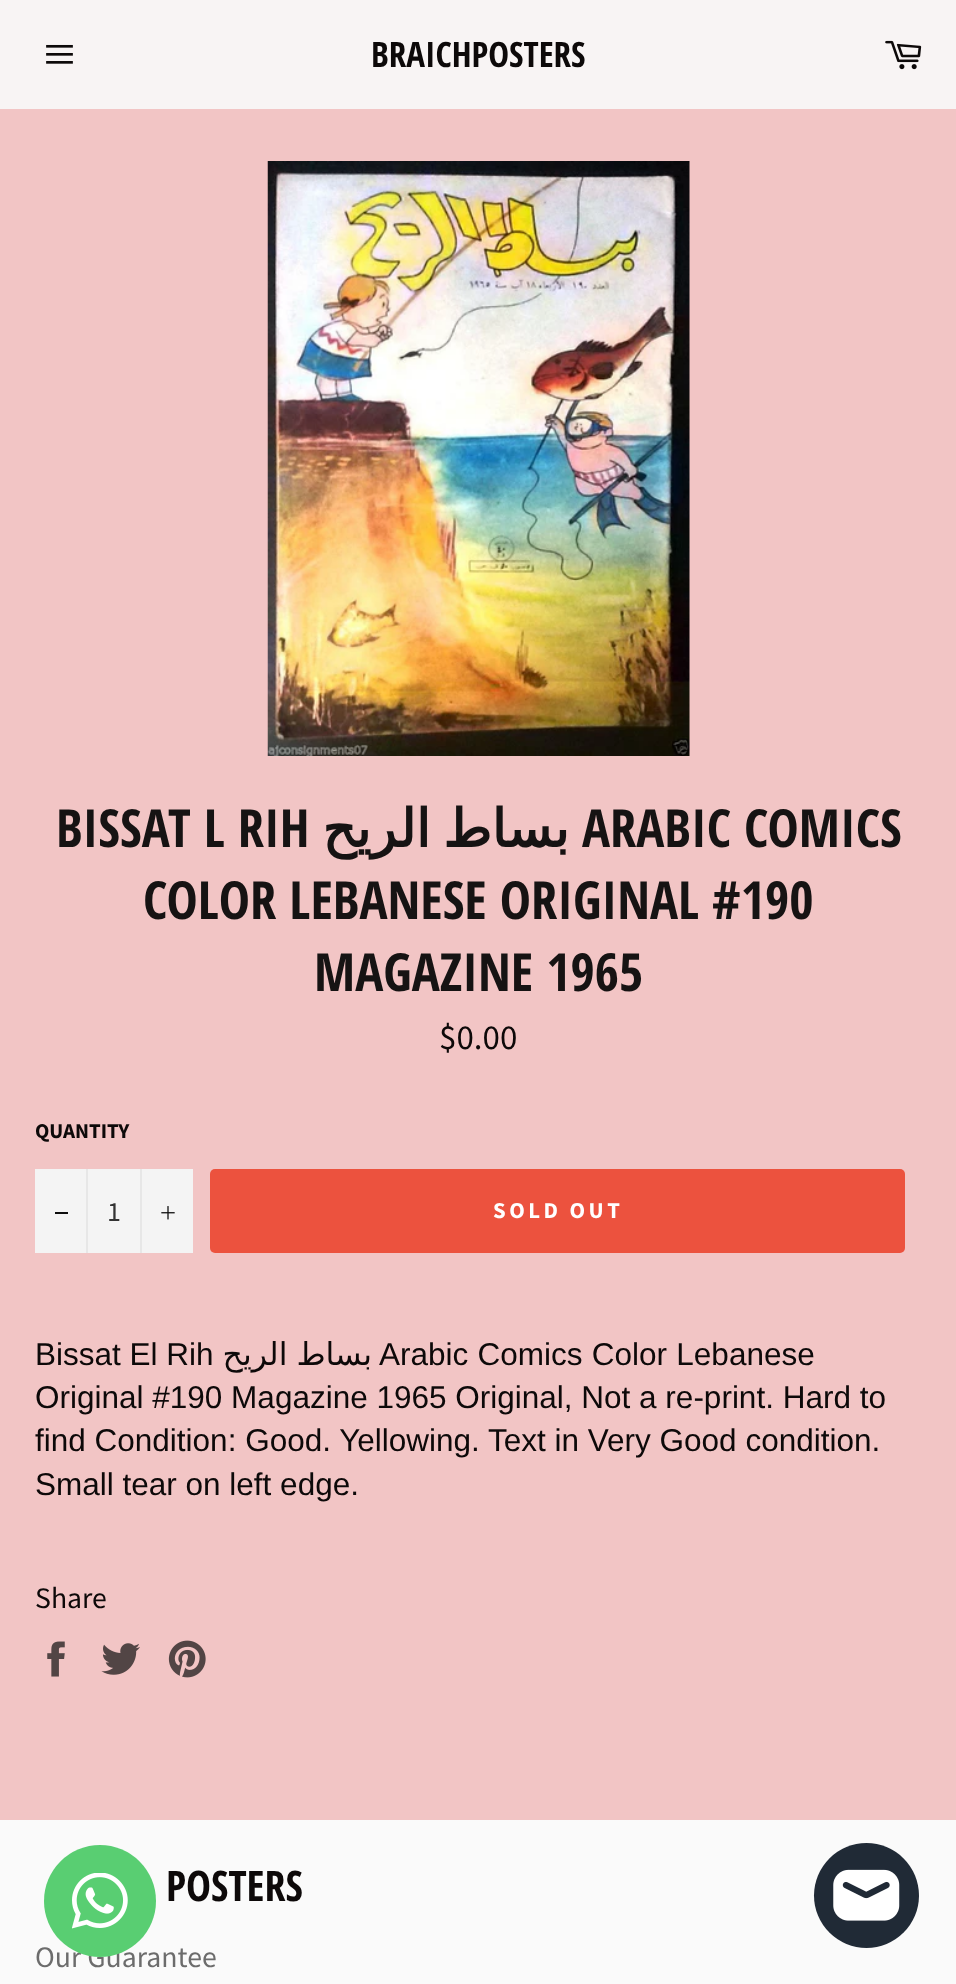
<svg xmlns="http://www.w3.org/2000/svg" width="956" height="1984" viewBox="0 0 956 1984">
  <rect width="100%" height="100%" fill="#f2c5c5"/>
  <path d="M0 0h956v109H0z" fill="#f8f4f4"/>
  <image x="46" y="44" width="27" height="20" href="img/1.png"/>
  <image x="885" y="40" width="37" height="30" href="img/2.png"/>
  <image x="267" y="161" width="423" height="595" href="img/3.png"/>
  <path d="M35 1169h158v84H35z" fill="#f4f4f4"/>
  <path d="M86 1169h2v84H86z" fill="#e7e7e7"/>
  <path d="M55 1212h13v2H55z" fill="#0d0d0d"/>
  <path d="M140 1169h2v84H140z" fill="#e7e7e7"/>
  <image x="161" y="1206" width="14" height="14" href="img/4.png"/>
  <rect x="210" y="1169" width="695" height="84" rx="5" fill="#ec523e"/>
  <image x="47" y="1641" width="18" height="36" href="img/5.png"/>
  <image x="101" y="1643" width="39" height="32" href="img/6.png"/>
  <image x="168" y="1640" width="38" height="38" href="img/7.png"/>
  <path d="M0 1820h956v164H0z" fill="#fafafa"/>
  <circle cx="866.5" cy="1895.5" r="52.5" fill="#202a36"/>
  <image x="833" y="1869" width="67" height="52" href="img/9.png"/>
  <text x="371" y="67" font-family="Open Sans Condensed" font-size="35" font-weight="bold" fill="#0d0909">BRAICHPOSTERS</text>
  <text x="56" y="847" font-family="Open Sans Condensed" font-size="52.5" font-weight="bold" fill="#161313">BISSAT L RIH</text>
  <text x="569" y="847" word-spacing="-4" font-family="DejaVu Sans" font-size="52.5" font-weight="bold" direction="rtl" fill="#161313">بساط الريح</text>
  <g font-family="Open Sans Condensed" font-size="52.5" font-weight="bold" fill="#161313">
    <text x="582" y="847">ARABIC COMICS</text>
    <text x="143" y="919">COLOR LEBANESE ORIGINAL #190</text>
    <text x="314" y="991">MAGAZINE 1965</text>
  </g>
  <text x="439" y="1049" font-family="Source Sans Pro" font-size="35" fill="#0d0909">$0.00</text>
  <text x="35" y="1138" font-family="Source Sans Pro" font-size="21" font-weight="bold" fill="#0d0909">QUANTITY</text>
  <text x="107" y="1221" font-family="Source Sans Pro" font-size="28" fill="#333">1</text>
  <text x="493" y="1218" font-family="Source Sans Pro" font-size="22.75" font-weight="bold" letter-spacing="3.5" fill="#fff">SOLD OUT</text>
  <text x="35" y="1365" font-family="Liberation Sans" font-size="31.5" fill="#0d0909">Bissat El Rih</text>
  <text x="372" y="1365" word-spacing="-1" font-family="DejaVu Sans" font-size="31.5" direction="rtl" fill="#0d0909">بساط الريح</text>
  <g font-family="Liberation Sans" font-size="31.5" fill="#0d0909">
    <text x="379" y="1365" word-spacing="0.5">Arabic Comics Color Lebanese</text>
    <text x="35" y="1408">Original #190 Magazine 1965 Original, Not a re-print. Hard to</text>
    <text x="35" y="1451">find Condition: Good. Yellowing. Text in Very Good condition.</text>
    <text x="35" y="1495">Small tear on left edge.</text>
  </g>
  <text x="35" y="1608" font-family="Source Sans Pro" font-size="29.75" fill="#0d0909">Share</text>
  <text x="166" y="1901" font-family="Open Sans Condensed" font-size="42" font-weight="bold" fill="#0d0909">POSTERS</text>
  <text x="35" y="1967" font-family="Source Sans Pro" font-size="29.75" fill="#6c6c6c">Our Guarantee</text>
  <circle cx="100" cy="1901" r="56" fill="#59ce72"/>
  <image x="72" y="1873" width="56" height="56" href="img/8.png"/>
</svg>
